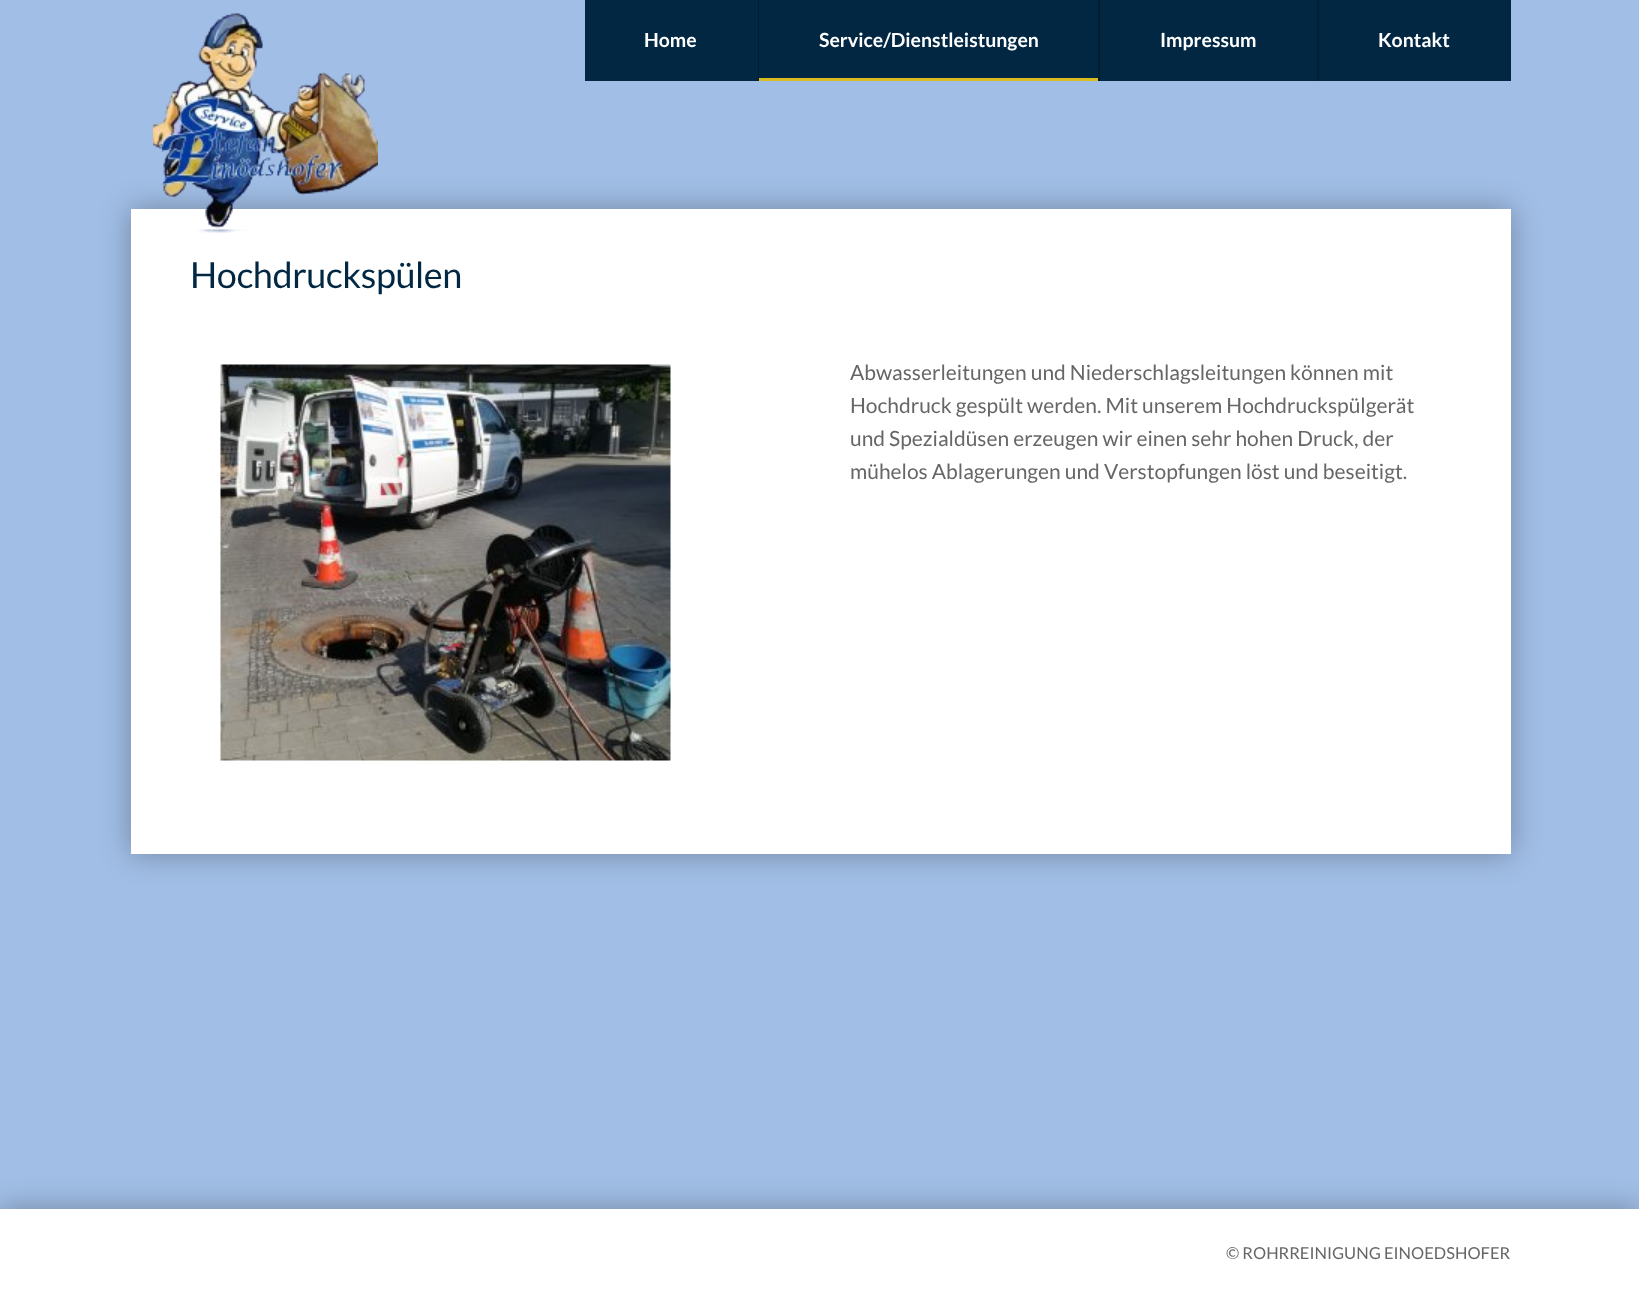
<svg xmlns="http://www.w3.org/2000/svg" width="1639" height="1299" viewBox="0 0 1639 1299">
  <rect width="100%" height="100%" fill="#a1bee6"/>
  <path d="M131 209h1380v645H131z" fill="#0000004d" filter="blur(15px)"/>
  <path d="M131 209h1380v645H131z" fill="#fff"/>
  <image x="153" y="13" width="225" height="220" href="img/1.png"/>
  <path d="M585 0h173v81H585z" fill="#012743"/>
  <path d="M758 0h1v81H758z" fill="#041e31"/>
  <path d="M759 0h339v78H759z" fill="#012743"/>
  <path d="M1098 0h2v81H1098z" fill="#041e31"/>
  <path d="M759 78h339v3H759z" fill="#d8bc22"/>
  <path d="M1100 0h217v81H1100z" fill="#012743"/>
  <path d="M1317 0h2v81H1317z" fill="#041e31"/>
  <path d="M1319 0h192v81H1319z" fill="#012743"/>
  <image x="220" y="364" width="451" height="397" href="img/2.png"/>
  <path d="M0 1209h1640v90H0z" fill="#0000004d" filter="blur(15px)"/>
  <path d="M0 1209h1639v90H0z" fill="#fff"/>
  <g font-family="Lato" font-size="19.5" font-weight="bold" fill="#fff">
    <text x="644" y="47">Home</text>
    <text x="819" y="47">Service/Dienstleistungen</text>
    <text x="1160" y="47">Impressum</text>
    <text x="1378" y="47">Kontakt</text>
  </g>
  <text x="190" y="288" font-family="Lato" font-size="36" letter-spacing="-0.4" fill="#012743">Hochdruckspülen</text>
  <g font-family="Lato" font-size="21" fill="#666">
    <text x="850" y="380">Abwasserleitungen und Niederschlagsleitungen können mit</text>
    <text x="850" y="413">Hochdruck gespült werden. Mit unserem Hochdruckspülgerät</text>
    <text x="850" y="446">und Spezialdüsen erzeugen wir einen sehr hohen Druck, der</text>
    <text x="850" y="479">mühelos Ablagerungen und Verstopfungen löst und beseitigt.</text>
  </g>
  <text x="1226" y="1259" font-family="Lato" font-size="16.5" fill="#666">© ROHRREINIGUNG EINOEDSHOFER</text>
</svg>
